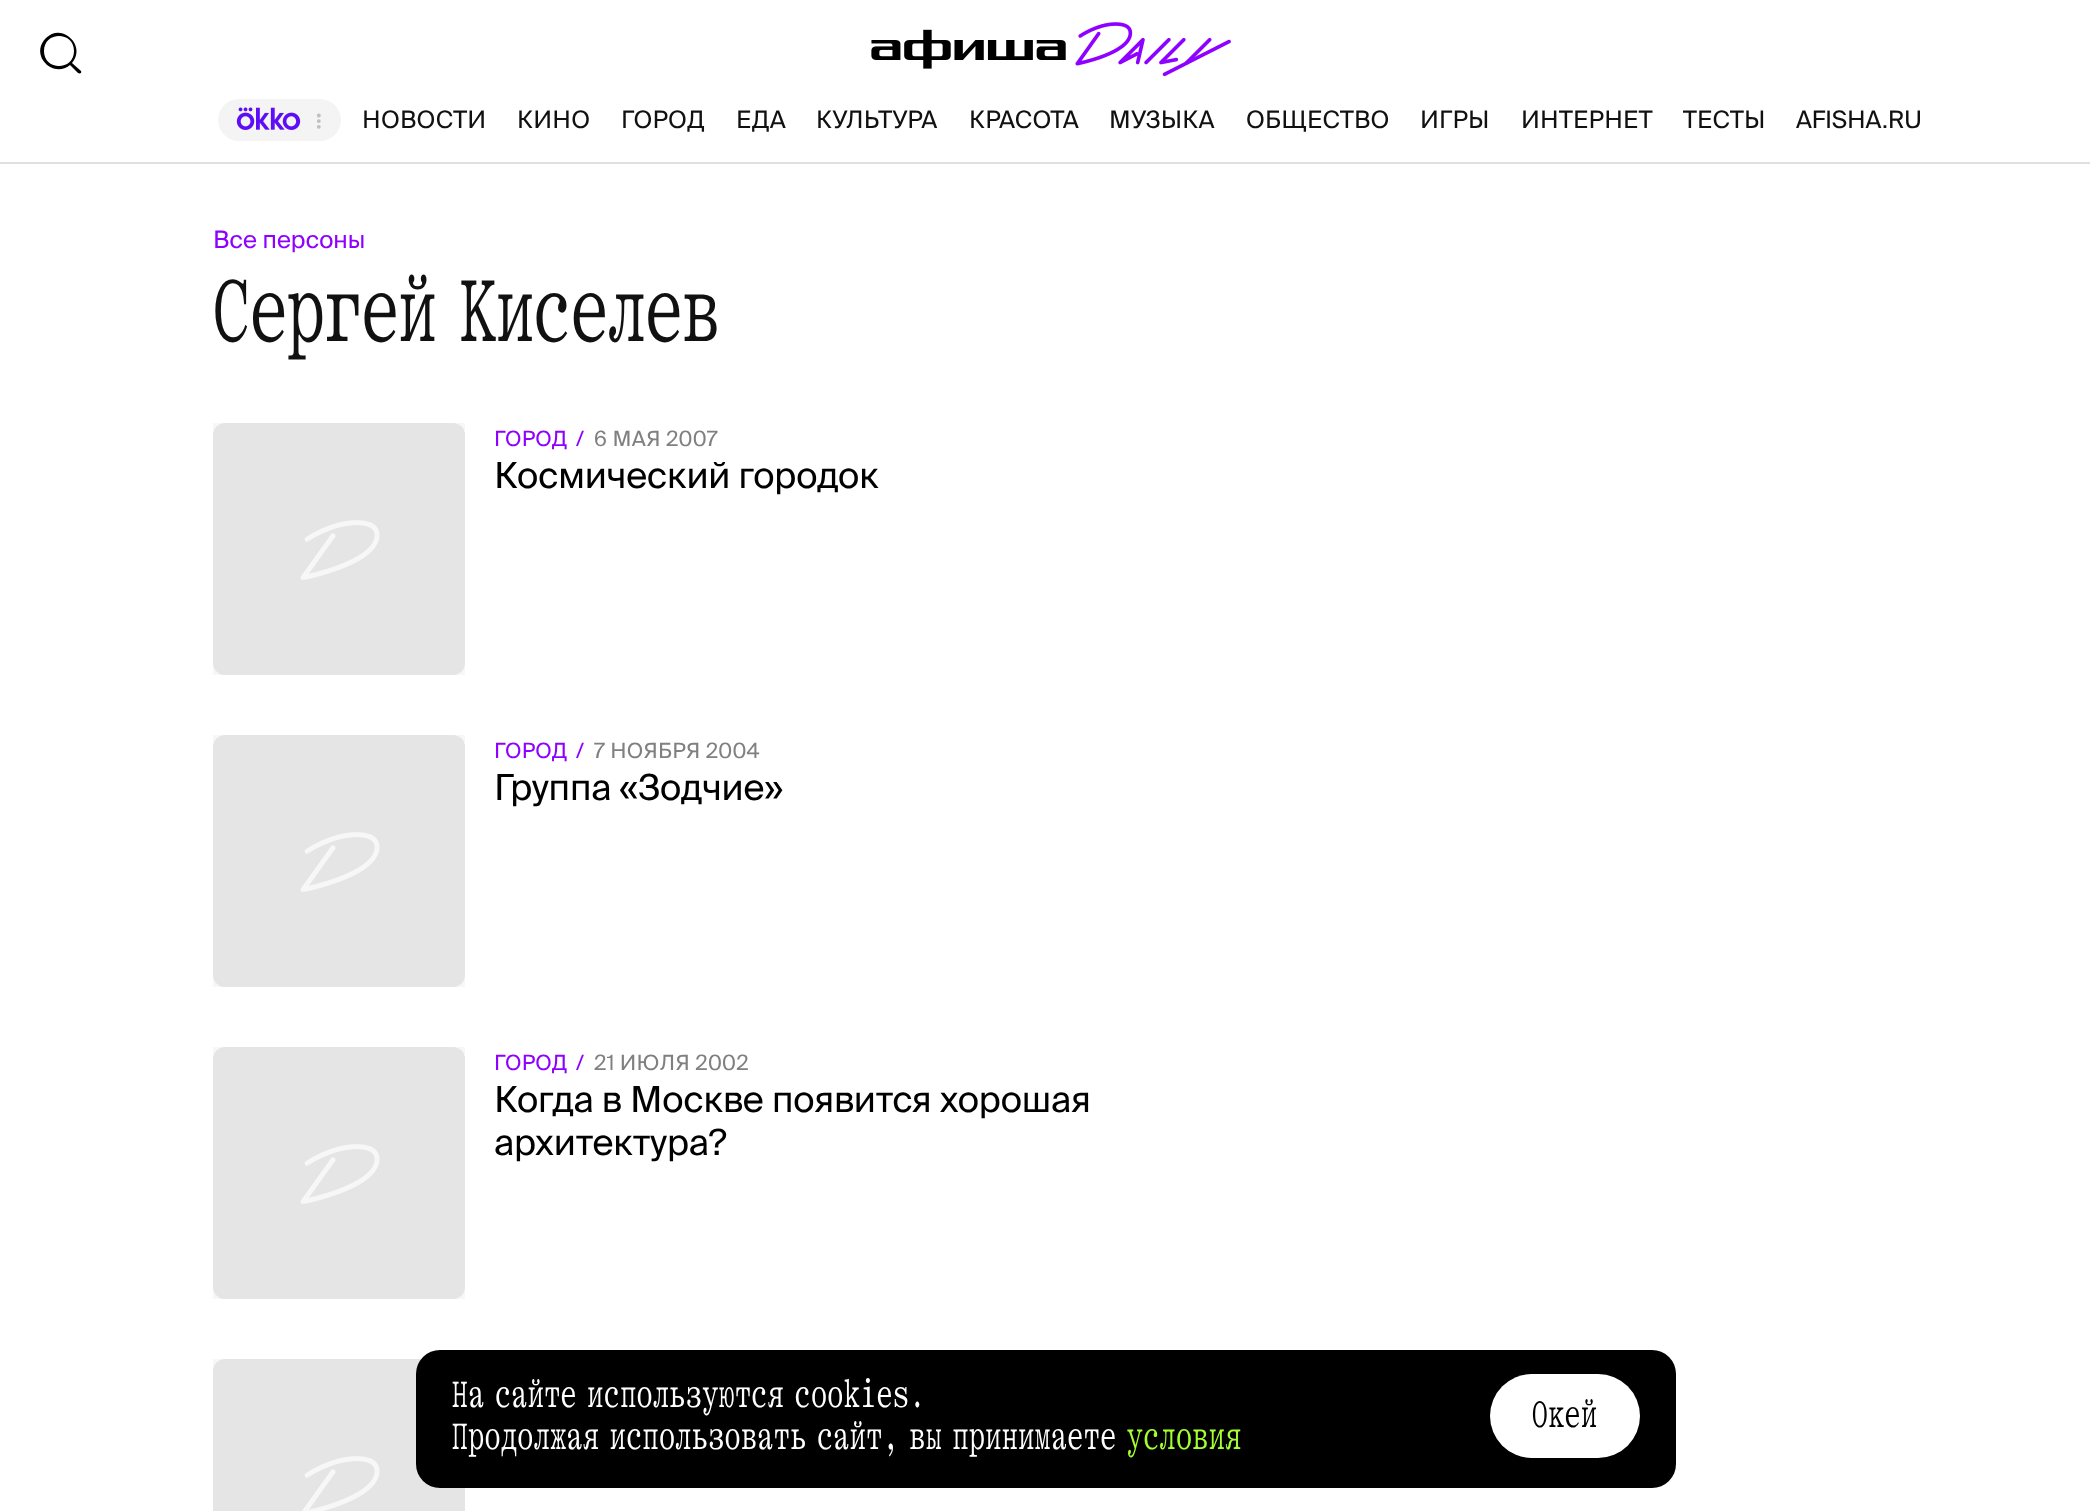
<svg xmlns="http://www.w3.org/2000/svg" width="2090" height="1511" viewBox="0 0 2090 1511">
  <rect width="100%" height="100%" fill="#fff"/>
  <image x="871" y="22" width="360" height="55" href="img/1.png"/>
  <path d="M0 162h2090v2H0z" fill="#e0e0e0"/>
  <path d="M74 51C74 71 44 71 44 51C44 31 74 31 74 51M70 65C53 79 29 55 46 38C62 22 87 46 72 63L81 71C82 73 80 74 78 73Z" fill="#000" fill-rule="evenodd"/>
  <rect x="218" y="99" width="123" height="42" rx="21" fill="#f4f4f4"/>
  <image x="236" y="107" width="65" height="23" href="img/2.png"/>
  <circle cx="318.8" cy="115.5" r="1.9" fill="#bfbfbf"/>
  <circle cx="318.8" cy="121.1" r="1.9" fill="#bfbfbf"/>
  <circle cx="318.8" cy="126.8" r="1.9" fill="#bfbfbf"/>
  <rect x="213" y="423" width="252" height="252" rx="12" fill="#ededed"/>
  <image x="300" y="520" width="80" height="60" href="img/3.png"/>
  <path d="M213 423h252v252H213z" fill="#00000008"/>
  <rect x="213" y="735" width="252" height="252" rx="12" fill="#ededed"/>
  <image x="300" y="832" width="80" height="60" href="img/3.png"/>
  <path d="M213 735h252v252H213z" fill="#00000008"/>
  <rect x="213" y="1047" width="252" height="252" rx="12" fill="#ededed"/>
  <image x="300" y="1144" width="80" height="60" href="img/3.png"/>
  <path d="M213 1047h252v252H213z" fill="#00000008"/>
  <rect x="213" y="1359" width="252" height="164" rx="12" fill="#ededed"/>
  <image x="302" y="1456" width="78" height="55" href="img/4.png"/>
  <path d="M213 1359h252v152H213z" fill="#00000008"/>
  <rect x="416" y="1350" width="1260" height="138" rx="24" fill="#000"/>
  <rect x="1490" y="1374" width="150" height="84" rx="42" fill="#fff"/>
  <g font-family="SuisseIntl" font-size="24" letter-spacing="0.25" fill="#111">
    <text x="362" y="128">НОВОСТИ</text>
    <text x="517" y="128">КИНО</text>
    <text x="621" y="128">ГОРОД</text>
    <text x="736" y="128">ЕДА</text>
    <text x="816" y="128">КУЛЬТУРА</text>
    <text x="969" y="128">КРАСОТА</text>
    <text x="1109" y="128">МУЗЫКА</text>
    <text x="1246" y="128">ОБЩЕСТВО</text>
    <text x="1420" y="128">ИГРЫ</text>
    <text x="1521" y="128">ИНТЕРНЕТ</text>
    <text x="1683" y="128">ТЕСТЫ</text>
  </g>
  <text x="1796" y="128" font-family="SuisseIntl" font-size="24" fill="#111">AFISHA.RU</text>
  <text x="213" y="248" font-family="SuisseIntl" font-size="24" fill="#8e00ff">Все персоны</text>
  <text x="213" y="341" word-spacing="-14" font-family="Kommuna" font-size="93" fill="#111">Сергей Киселев</text>
  <g font-family="SuisseIntl" font-size="21" letter-spacing="0.25" fill="#8e00ff">
    <text x="494" y="446">ГОРОД</text>
    <text x="576" y="446">/</text>
  </g>
  <text x="594" y="446" font-family="SuisseIntl" font-size="21" letter-spacing="0.25" fill="#808080">6 МАЯ 2007</text>
  <text x="494" y="488" font-family="SuisseIntl" font-size="36" letter-spacing="-0.2" fill="#000">Космический городок</text>
  <g font-family="SuisseIntl" font-size="21" letter-spacing="0.25" fill="#8e00ff">
    <text x="494" y="758">ГОРОД</text>
    <text x="576" y="758">/</text>
  </g>
  <text x="594" y="758" font-family="SuisseIntl" font-size="21" letter-spacing="0.25" fill="#808080">7 НОЯБРЯ 2004</text>
  <text x="494" y="800" font-family="SuisseIntl" font-size="36" letter-spacing="-0.2" fill="#000">Группа «Зодчие»</text>
  <g font-family="SuisseIntl" font-size="21" letter-spacing="0.25" fill="#8e00ff">
    <text x="494" y="1070">ГОРОД</text>
    <text x="576" y="1070">/</text>
  </g>
  <text x="594" y="1070" font-family="SuisseIntl" font-size="21" letter-spacing="0.25" fill="#808080">21 ИЮЛЯ 2002</text>
  <g font-family="SuisseIntl" font-size="36" letter-spacing="-0.2" fill="#000">
    <text x="494" y="1112">Когда в Москве появится хорошая</text>
    <text x="494" y="1155">архитектура?</text>
  </g>
  <g font-family="Kommuna" font-size="39" letter-spacing="0.8" fill="#fff">
    <text x="452" y="1407" word-spacing="-6">На сайте используются cookies.</text>
    <text x="452" y="1449" word-spacing="-6">Продолжая использовать сайт, вы принимаете</text>
  </g>
  <text x="1127" y="1449" font-family="Kommuna" font-size="39" letter-spacing="0.8" fill="#a4ff30">условия</text>
  <text x="1532" y="1427" font-family="Kommuna" font-size="39" letter-spacing="0.8" fill="#000">Окей</text>
</svg>
